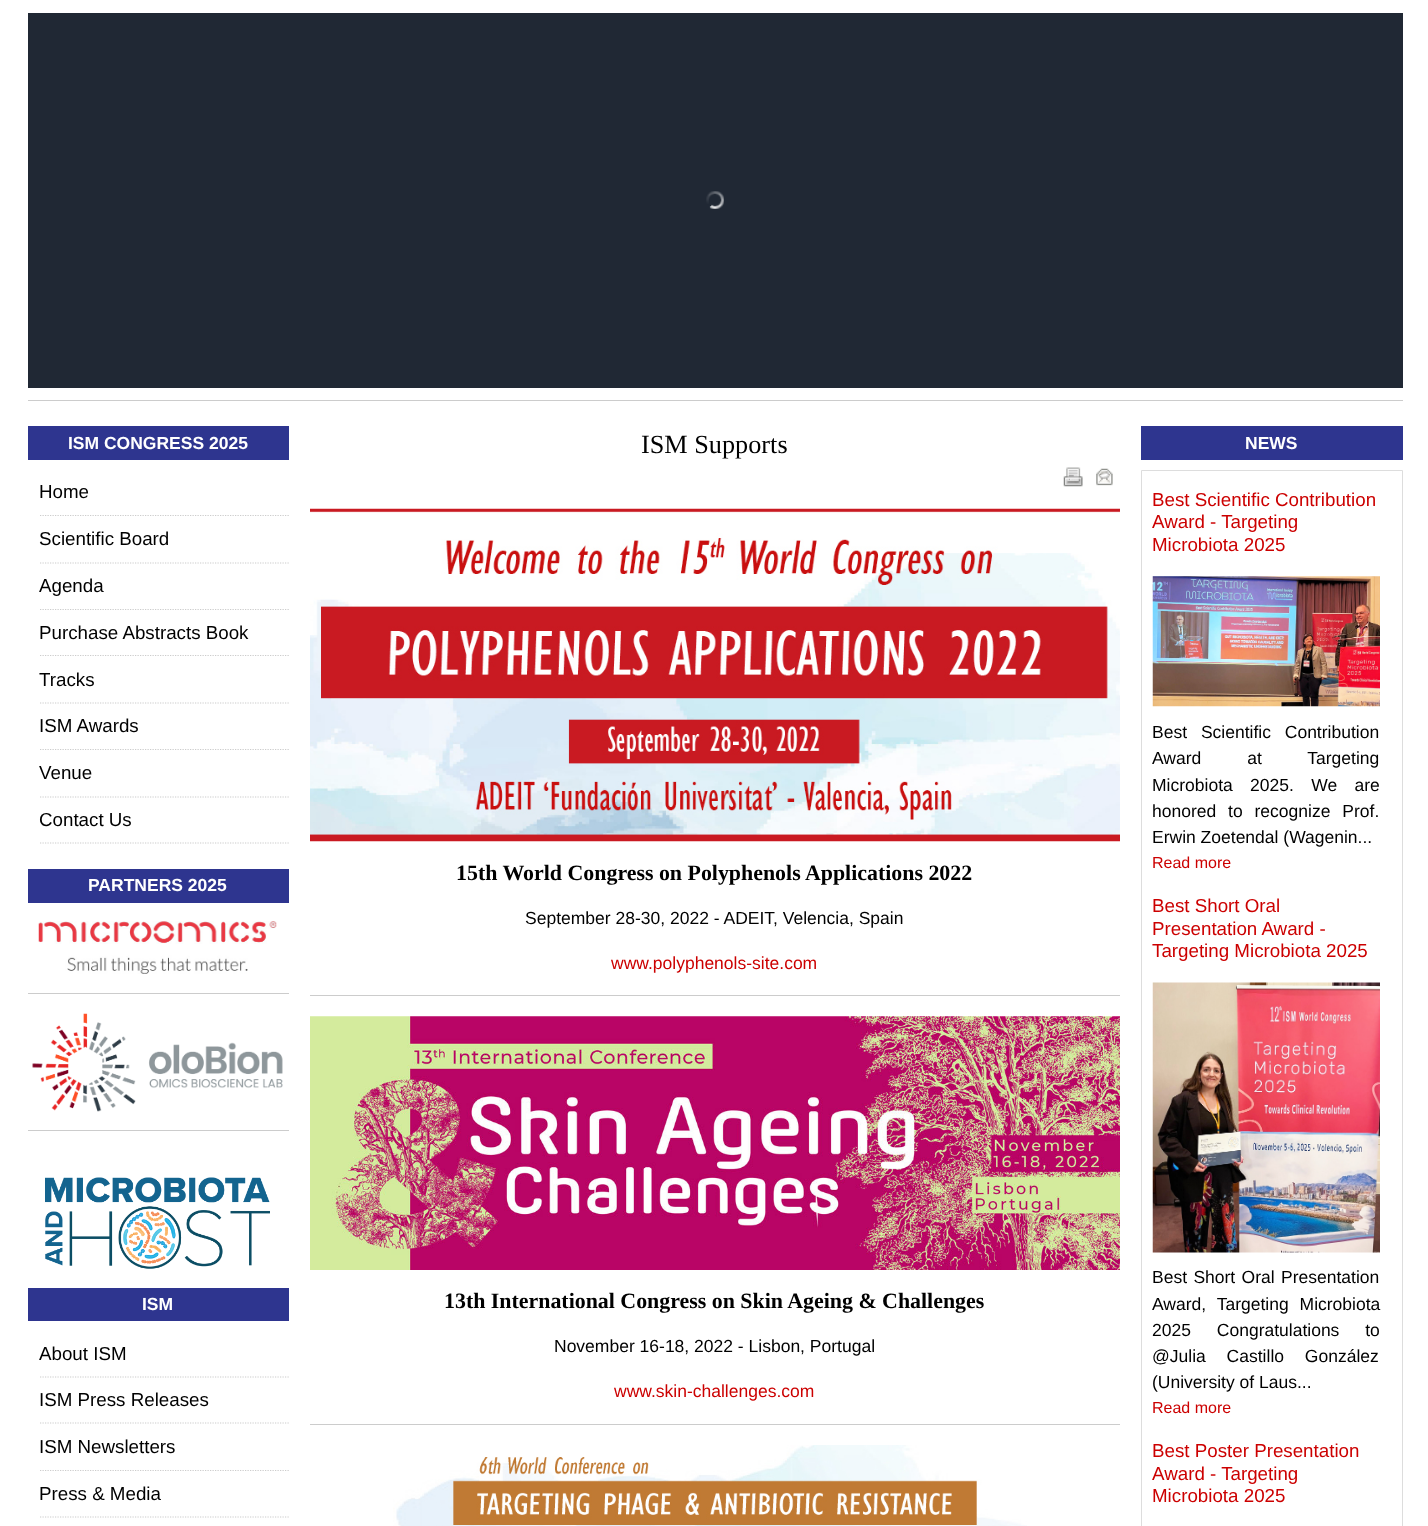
<svg xmlns="http://www.w3.org/2000/svg" width="1428" height="1526" viewBox="0 0 1428 1526">
  <rect width="100%" height="100%" fill="#fff"/>
  <path d="M28 400h1375v1H28z" fill="#ccc"/>
  <path d="M28 13h1375v375H28z" fill="#202834"/>
  <image x="706" y="191" width="18" height="18" href="img/1.png"/>
  <path d="M28 426h261v34H28z" fill="#2e358f"/>
  <path d="M40 515.5H289" fill="none" stroke="#ccc" stroke-width="1.2" stroke-dasharray="1.25 1.25"/>
  <path d="M40 563H289" fill="none" stroke="#ccc" stroke-width="1.2" stroke-dasharray="1.25 1.25"/>
  <path d="M40 609.5H289" fill="none" stroke="#ccc" stroke-width="1.2" stroke-dasharray="1.25 1.25"/>
  <path d="M40 655.5H289" fill="none" stroke="#ccc" stroke-width="1.2" stroke-dasharray="1.25 1.25"/>
  <path d="M40 703H289" fill="none" stroke="#ccc" stroke-width="1.2" stroke-dasharray="1.25 1.25"/>
  <path d="M40 749.5H289" fill="none" stroke="#ccc" stroke-width="1.2" stroke-dasharray="1.25 1.25"/>
  <path d="M40 797H289" fill="none" stroke="#ccc" stroke-width="1.2" stroke-dasharray="1.25 1.25"/>
  <path d="M40 843H289" fill="none" stroke="#ccc" stroke-width="1.2" stroke-dasharray="1.25 1.25"/>
  <path d="M28 869h261v34H28z" fill="#2e358f"/>
  <image x="38" y="921" width="239" height="53" href="img/2.png"/>
  <path d="M28 993h261v1H28z" fill="#ccc"/>
  <image x="32" y="1013" width="251" height="99" href="img/3.png"/>
  <path d="M28 1130h261v1H28z" fill="#ccc"/>
  <image x="45" y="1177" width="225" height="92" href="img/4.png"/>
  <path d="M28 1288h261v33H28z" fill="#2e358f"/>
  <path d="M40 1377H289" fill="none" stroke="#ccc" stroke-width="1.2" stroke-dasharray="1.25 1.25"/>
  <path d="M40 1423H289" fill="none" stroke="#ccc" stroke-width="1.2" stroke-dasharray="1.25 1.25"/>
  <path d="M40 1470.5H289" fill="none" stroke="#ccc" stroke-width="1.2" stroke-dasharray="1.25 1.25"/>
  <path d="M40 1517H289" fill="none" stroke="#ccc" stroke-width="1.2" stroke-dasharray="1.25 1.25"/>
  <image x="1063" y="467" width="20" height="20" href="img/5.png"/>
  <image x="1096" y="468" width="17" height="18" href="img/6.png"/>
  <image x="310" y="508" width="810" height="334" href="img/7.png"/>
  <path d="M310 995h810v1H310z" fill="#ccc"/>
  <image x="310" y="1016" width="810" height="254" href="img/8.png"/>
  <path d="M310 1424h810v1H310z" fill="#ccc"/>
  <image x="393" y="1445" width="634" height="81" href="img/9.png"/>
  <path d="M1141 426h262v34H1141z" fill="#2e358f"/>
  <path d="M1141.5 470.5h261v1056H1141.5z" fill="none" stroke="#ddd"/>
  <image x="1152" y="576" width="228" height="131" href="img/10.png"/>
  <image x="1152" y="982" width="228" height="271" href="img/11.png"/>
  <text x="68" y="449" font-family="Liberation Sans" font-size="17.5" font-weight="bold" fill="#fff">ISM CONGRESS 2025</text>
  <g font-family="Liberation Sans" font-size="18.75" fill="#000">
    <text x="39" y="498">Home</text>
    <text x="39" y="545">Scientific Board</text>
    <text x="39" y="592">Agenda</text>
    <text x="39" y="639">Purchase Abstracts Book</text>
    <text x="39" y="686">Tracks</text>
    <text x="39" y="732">ISM Awards</text>
    <text x="39" y="779">Venue</text>
    <text x="39" y="826">Contact Us</text>
  </g>
  <g font-family="Liberation Sans" font-size="17.5" font-weight="bold" fill="#fff">
    <text x="88" y="891">PARTNERS 2025</text>
    <text x="142" y="1310">ISM</text>
  </g>
  <g font-family="Liberation Sans" font-size="18.75" fill="#000">
    <text x="39" y="1360">About ISM</text>
    <text x="39" y="1406">ISM Press Releases</text>
    <text x="39" y="1453">ISM Newsletters</text>
    <text x="39" y="1500">Press &amp; Media</text>
  </g>
  <text x="641" y="453" font-family="Liberation Serif" font-size="26.25" fill="#000">ISM Supports</text>
  <text x="456" y="880" font-family="Liberation Serif" font-size="21.9" font-weight="bold" fill="#000">15th World Congress on Polyphenols Applications 2022</text>
  <text x="525" y="924" font-family="Liberation Sans" font-size="17.5" fill="#000">September 28-30, 2022 - ADEIT, Velencia, Spain</text>
  <text x="611" y="969" font-family="Liberation Sans" font-size="17.5" fill="#c00">www.polyphenols-site.com</text>
  <text x="444" y="1308" font-family="Liberation Serif" font-size="21.9" font-weight="bold" fill="#000">13th International Congress on Skin Ageing &amp; Challenges</text>
  <text x="554" y="1352" font-family="Liberation Sans" font-size="17.5" fill="#000">November 16-18, 2022 - Lisbon, Portugal</text>
  <text x="614" y="1397" font-family="Liberation Sans" font-size="17.5" fill="#c00">www.skin-challenges.com</text>
  <text x="1245" y="449" font-family="Liberation Sans" font-size="17.5" font-weight="bold" fill="#fff">NEWS</text>
  <g font-family="Liberation Sans" font-size="18.75" fill="#c00">
    <text x="1152" y="506">Best Scientific Contribution</text>
    <text x="1152" y="528">Award - Targeting</text>
    <text x="1152" y="551">Microbiota 2025</text>
  </g>
  <g font-family="Liberation Sans" font-size="17.5" fill="#000">
    <text x="1152" y="738" word-spacing="9">Best Scientific Contribution</text>
    <text x="1152" y="764" word-spacing="41">Award at Targeting</text>
    <text x="1152" y="791" word-spacing="12.5">Microbiota 2025. We are</text>
    <text x="1152" y="817" word-spacing="7">honored to recognize Prof.</text>
    <text x="1152" y="843">Erwin Zoetendal (Wagenin...</text>
  </g>
  <text x="1152" y="868" font-family="Liberation Sans" font-size="16" fill="#c00">Read more</text>
  <g font-family="Liberation Sans" font-size="18.75" fill="#c00">
    <text x="1152" y="912">Best Short Oral</text>
    <text x="1152" y="935">Presentation Award -</text>
    <text x="1152" y="957">Targeting Microbiota 2025</text>
  </g>
  <g font-family="Liberation Sans" font-size="17.5" fill="#000">
    <text x="1152" y="1283" word-spacing="1.5">Best Short Oral Presentation</text>
    <text x="1152" y="1310" word-spacing="6">Award, Targeting Microbiota</text>
    <text x="1152" y="1336" word-spacing="21">2025 Congratulations to</text>
    <text x="1152" y="1362" word-spacing="16">@Julia Castillo González</text>
    <text x="1152" y="1388">(University of Laus...</text>
  </g>
  <text x="1152" y="1413" font-family="Liberation Sans" font-size="16" fill="#c00">Read more</text>
  <g font-family="Liberation Sans" font-size="18.75" fill="#c00">
    <text x="1152" y="1457">Best Poster Presentation</text>
    <text x="1152" y="1480">Award - Targeting</text>
    <text x="1152" y="1502">Microbiota 2025</text>
  </g>
</svg>
